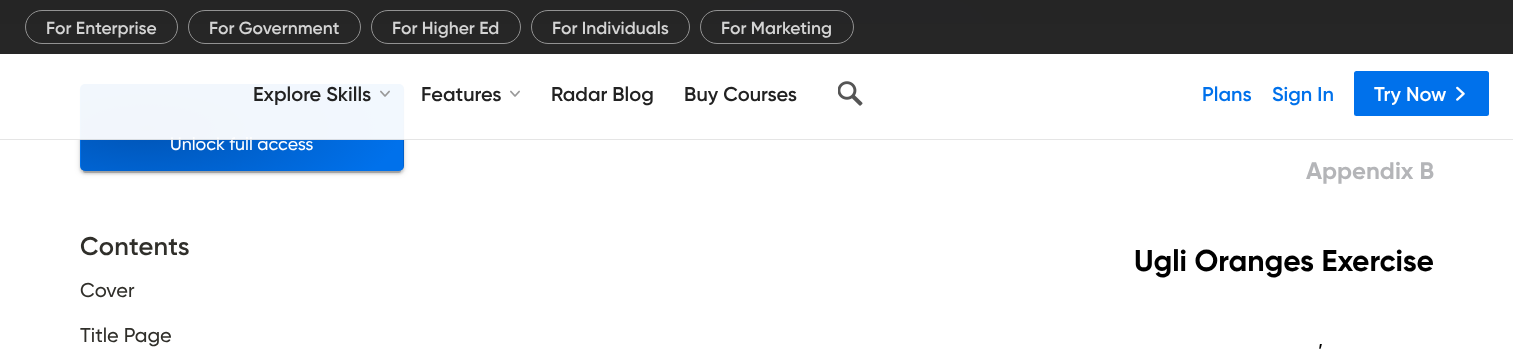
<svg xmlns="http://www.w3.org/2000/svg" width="1513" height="351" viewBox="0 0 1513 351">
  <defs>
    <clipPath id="clip1"><rect x="80" y="84" width="324" height="87" rx="5"/></clipPath>
    <radialGradient id="g1" gradientUnits="userSpaceOnUse" cx="0" cy="0" r="1" gradientTransform="matrix(255 0 0 89 147 43)"><stop offset="0" stop-color="#0054b5"/><stop offset="1" stop-color="#0071eb"/></radialGradient>
    <radialGradient id="g2" gradientUnits="userSpaceOnUse" cx="0" cy="0" r="1" gradientTransform="matrix(255 0 0 89 -174 128)"><stop offset="0" stop-color="#0054b5"/><stop offset="1" stop-color="#0071eb"/></radialGradient>
    <radialGradient id="g3" gradientUnits="userSpaceOnUse" cx="0" cy="0" r="1" gradientTransform="matrix(255 0 0 89 147 128)"><stop offset="0" stop-color="#0054b5"/><stop offset="1" stop-color="#0071eb"/></radialGradient>
    <radialGradient id="g4" gradientUnits="userSpaceOnUse" cx="0" cy="0" r="1" gradientTransform="matrix(255 0 0 89 469 128)"><stop offset="0" stop-color="#0054b5"/><stop offset="1" stop-color="#0071eb"/></radialGradient>
    <radialGradient id="g5" gradientUnits="userSpaceOnUse" cx="0" cy="0" r="1" gradientTransform="matrix(255 0 0 89 147 213)"><stop offset="0" stop-color="#0054b5"/><stop offset="1" stop-color="#0071eb"/></radialGradient>
  </defs>
  <rect width="100%" height="100%" fill="#fff"/>
  <path d="M0 0h1513v24H0z" fill="#121926"/>
  <image x="0" y="0" width="1513" height="24" href="img/5.png"/>
  <rect x="80" y="85" width="324" height="88" rx="5" fill="#0000001f" filter="blur(3px)"/>
  <rect x="80" y="86" width="324" height="88" rx="5" fill="#00000024" filter="blur(1px)"/>
  <rect x="83" y="90" width="318" height="83" rx="2.5" fill="#00000033" filter="blur(0.5px)"/>
  <g clip-path="url(#clip1)">
    <path d="M81 84h322v1H81z" fill="url(#g1)"/>
    <path d="M80 85h1v85H80z" fill="url(#g2)"/>
    <path d="M81 85h322v85H81z" fill="url(#g3)"/>
    <path d="M403 85h1v85H403z" fill="url(#g4)"/>
    <path d="M81 170h322v1H81z" fill="url(#g5)"/>
  </g>
  <text x="170" y="150" font-family="Gilroy" font-size="17.75" font-weight="500" fill="#fff">Unlock full access</text>
  <path d="M0 0h1513v140H0z" fill="#fffffff2"/>
  <rect x="1354" y="71" width="135" height="45" rx="2.5" fill="#0071eb"/>
  <image x="1456" y="86" width="9" height="15" href="img/4.png"/>
  <text x="1374" y="101" font-family="Gilroy" font-size="20" font-weight="600" fill="#fff">Try Now</text>
  <g font-family="Gilroy" font-size="20" font-weight="600" fill="#0071eb">
    <text x="1272" y="101">Sign In</text>
    <text x="1202" y="101">Plans</text>
  </g>
  <g font-family="Gilroy" font-size="20" font-weight="600" fill="#222">
    <text x="684" y="101">Buy Courses</text>
    <text x="551" y="101">Radar Blog</text>
  </g>
  <image x="510" y="90" width="10" height="7" href="img/2.png"/>
  <text x="421" y="101" font-family="Gilroy" font-size="20" font-weight="600" fill="#222">Features</text>
  <image x="380" y="90" width="10" height="7" href="img/1.png"/>
  <text x="253" y="101" font-family="Gilroy" font-size="20" font-weight="600" fill="#222">Explore Skills</text>
  <image x="838" y="81" width="25" height="25" href="img/3.png"/>
  <path d="M0 0h1513v54H0z" fill="#000000d9"/>
  <rect x="700.5" y="10.5" width="153" height="33" rx="16.5" fill="none" stroke="#929292"/>
  <text x="721" y="34" font-family="Gilroy" font-size="17.5" font-weight="600" fill="#d4d4d4">For Marketing</text>
  <rect x="531.5" y="10.5" width="158" height="33" rx="16.5" fill="none" stroke="#929292"/>
  <text x="552" y="34" font-family="Gilroy" font-size="17.5" font-weight="600" fill="#d4d4d4">For Individuals</text>
  <rect x="371.5" y="10.5" width="149" height="33" rx="16.5" fill="none" stroke="#929292"/>
  <text x="392" y="34" font-family="Gilroy" font-size="17.5" font-weight="600" fill="#d4d4d4">For Higher Ed</text>
  <rect x="188.5" y="10.5" width="172" height="33" rx="16.5" fill="none" stroke="#929292"/>
  <text x="209" y="34" font-family="Gilroy" font-size="17.5" font-weight="600" fill="#d4d4d4">For Government</text>
  <rect x="25.5" y="10.5" width="152" height="33" rx="16.5" fill="none" stroke="#929292"/>
  <text x="46" y="34" font-family="Gilroy" font-size="17.5" font-weight="600" fill="#d4d4d4">For Enterprise</text>
  <path d="M0 139h1513v1H0z" fill="#0000001a"/>
  <text x="80" y="255" font-family="Gilroy" font-size="25.5" font-weight="600" letter-spacing="0.25" fill="#302f2a">Contents</text>
  <g font-family="Gilroy" font-size="20" font-weight="500" fill="#302f2a">
    <text x="80" y="297">Cover</text>
    <text x="80" y="342">Title Page</text>
  </g>
  <text x="1306" y="179" font-family="Gilroy" font-size="24" font-weight="bold" fill="#b4b5b8">Appendix B</text>
  <text x="1134" y="271" font-family="Gilroy" font-size="30" font-weight="bold" fill="#000">Ugli Oranges Exercise</text>
  <text x="1318" y="358" font-family="Gilroy" font-size="20" font-weight="500" fill="#000">’</text>
</svg>
